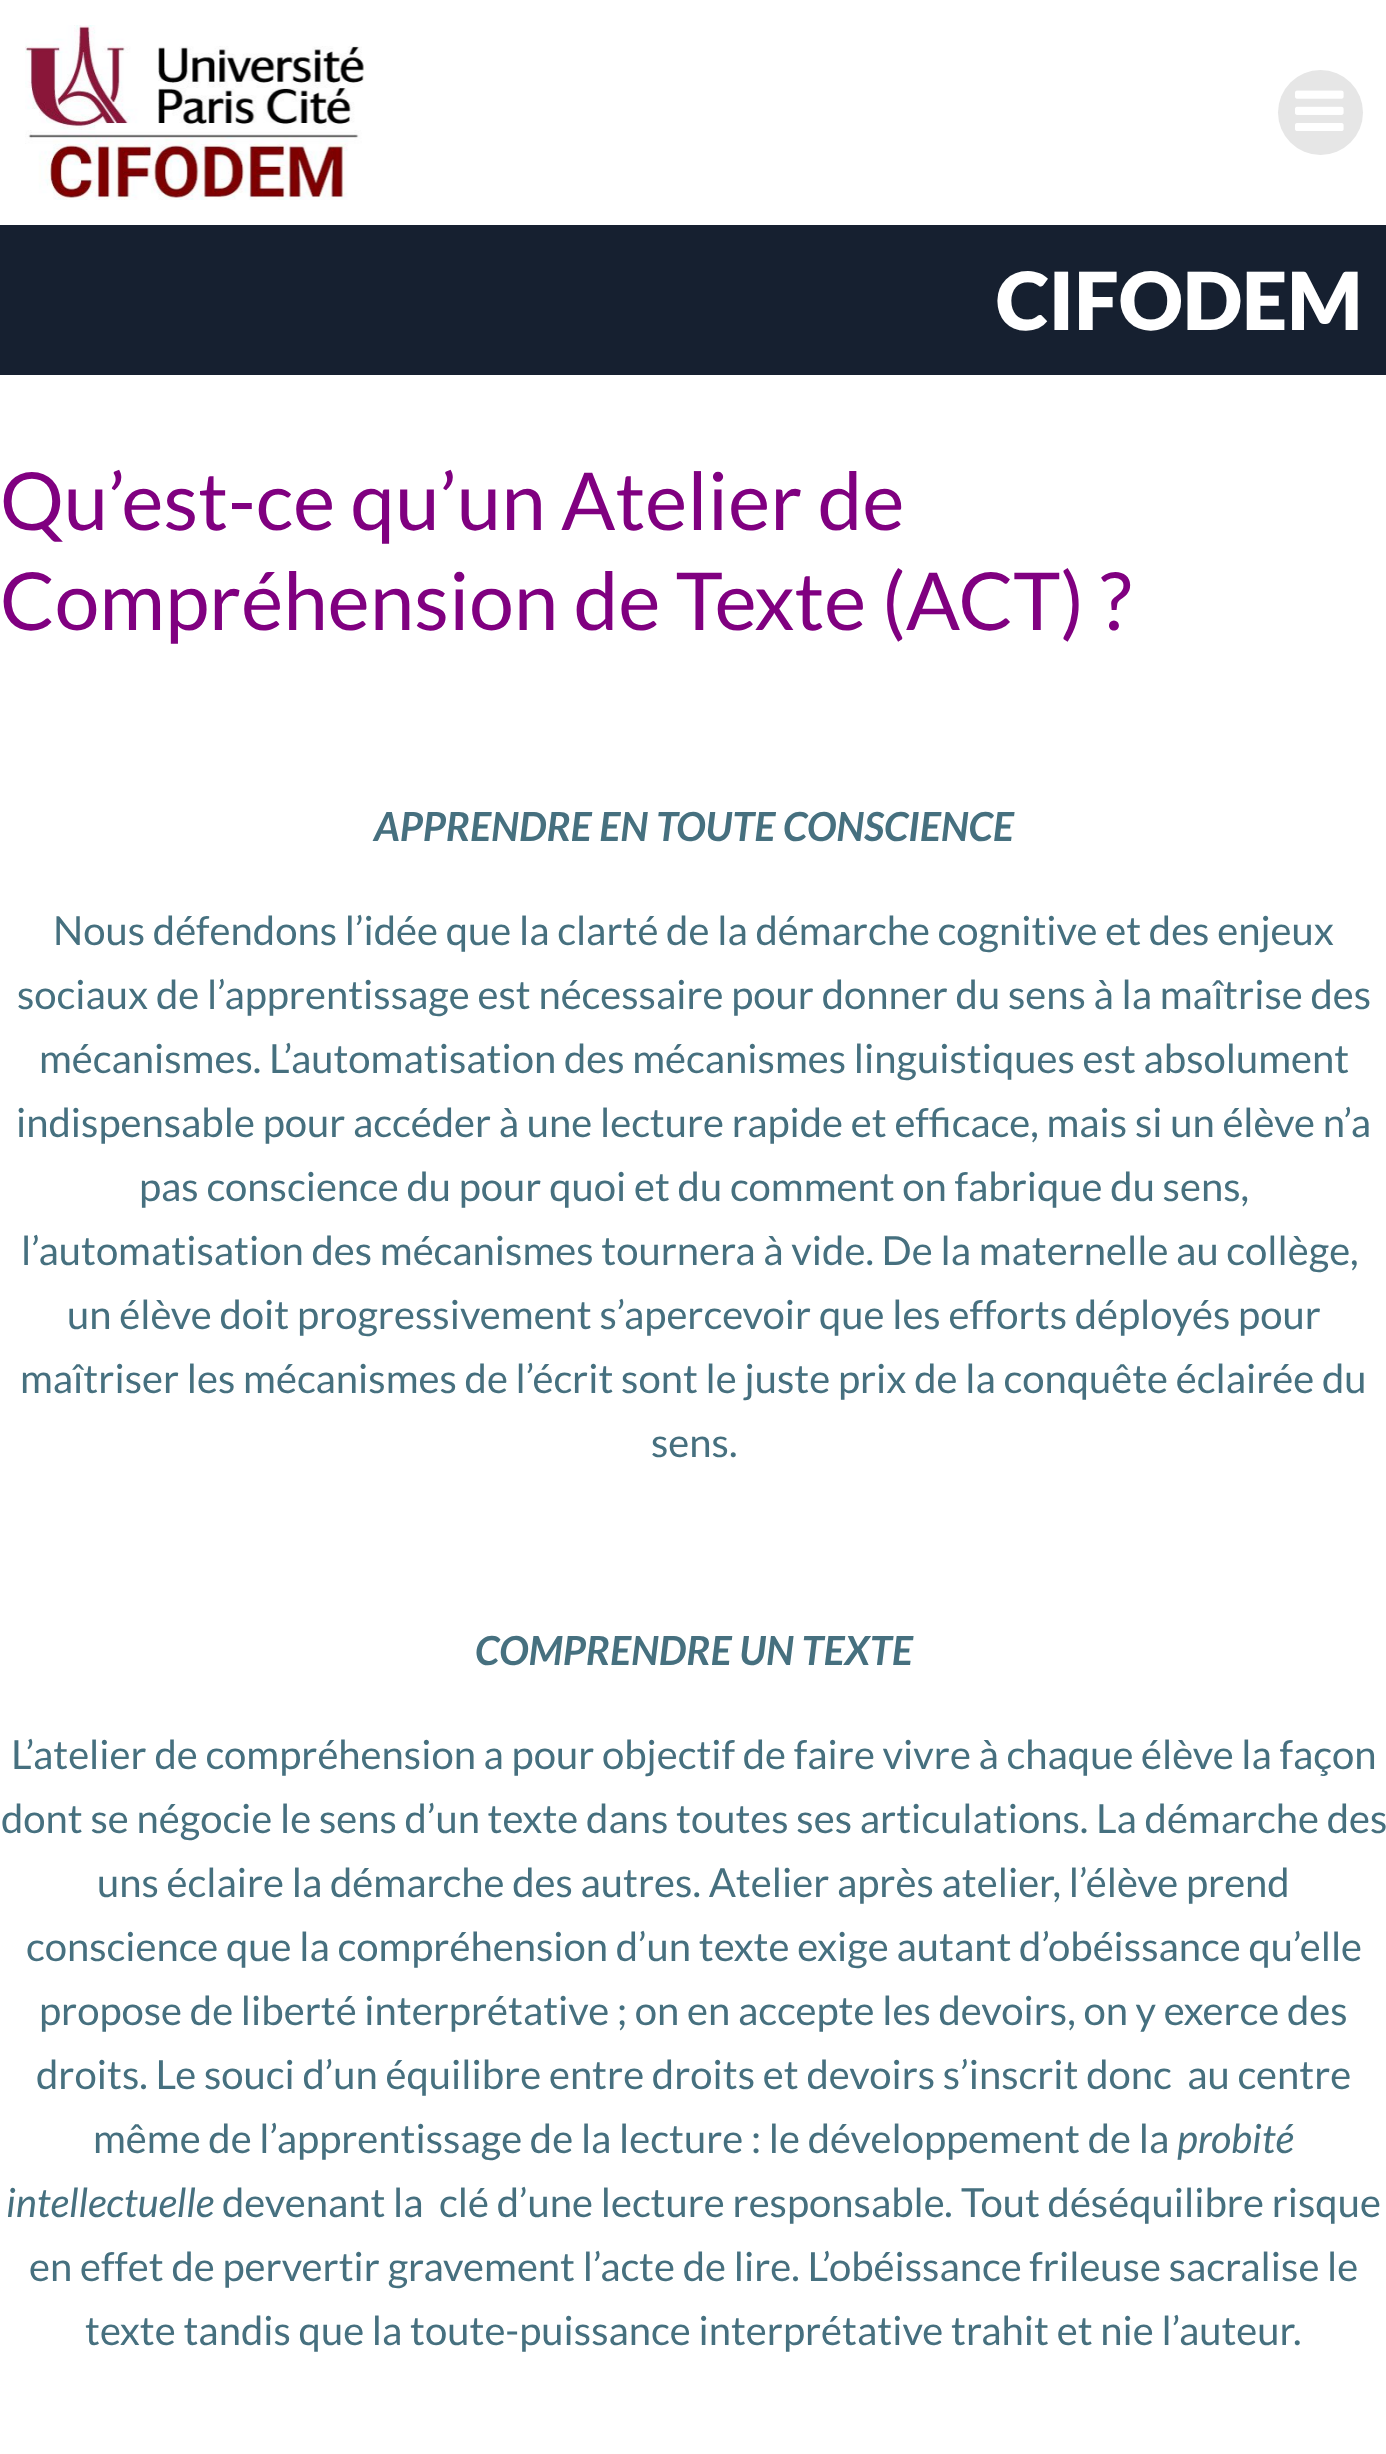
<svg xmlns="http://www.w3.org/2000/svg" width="1386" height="2454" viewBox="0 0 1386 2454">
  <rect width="100%" height="100%" fill="#fff"/>
  <image x="25" y="25" width="339" height="175" href="img/1.png"/>
  <circle cx="1320.5" cy="112.5" r="42.5" fill="#e6e6e6"/>
  <image x="1295" y="90" width="49" height="41" href="img/2.png"/>
  <path d="M0 225h1386v150H0z" fill="#162030"/>
  <text x="996" y="330" font-family="Lato" font-size="80" font-weight="900" fill="#fff">CIFODEM</text>
  <g font-family="Lato" font-size="80" fill="#800080">
    <text x="0" y="530">Qu’est-ce qu’un Atelier de</text>
    <text x="0" y="630">Compréhension de Texte (ACT) ?</text>
  </g>
  <text x="374" y="841" font-family="Lato" font-size="40" font-weight="bold" font-style="italic" fill="#46707f">APPRENDRE EN TOUTE CONSCIENCE</text>
  <g font-family="Lato" font-size="40" fill="#46707f">
    <text x="53" y="945">Nous défendons l’idée que la clarté de la démarche cognitive et des enjeux</text>
    <text x="17" y="1009">sociaux de l’apprentissage est nécessaire pour donner du sens à la maîtrise des</text>
    <text x="39" y="1073">mécanismes. L’automatisation des mécanismes linguistiques est absolument</text>
    <text x="16" y="1137">indispensable pour accéder à une lecture rapide et efficace, mais si un élève n’a</text>
    <text x="139" y="1201">pas conscience du pour quoi et du comment on fabrique du sens,</text>
    <text x="21" y="1265">l’automatisation des mécanismes tournera à vide. De la maternelle au collège,</text>
    <text x="67" y="1329">un élève doit progressivement s’apercevoir que les efforts déployés pour</text>
    <text x="20" y="1393">maîtriser les mécanismes de l’écrit sont le juste prix de la conquête éclairée du</text>
    <text x="651" y="1457">sens.</text>
  </g>
  <text x="475" y="1665" font-family="Lato" font-size="40" font-weight="bold" font-style="italic" fill="#46707f">COMPRENDRE UN TEXTE</text>
  <g font-family="Lato" font-size="40" fill="#46707f">
    <text x="11" y="1769">L’atelier de compréhension a pour objectif de faire vivre à chaque élève la façon</text>
    <text x="1" y="1833">dont se négocie le sens d’un texte dans toutes ses articulations. La démarche des</text>
    <text x="97" y="1897">uns éclaire la démarche des autres. Atelier après atelier, l’élève prend</text>
    <text x="26" y="1961">conscience que la compréhension d’un texte exige autant d’obéissance qu’elle</text>
    <text x="39" y="2025">propose de liberté interprétative ; on en accepte les devoirs, on y exerce des</text>
    <text x="36" y="2089" xml:space="preserve">droits. Le souci d’un équilibre entre droits et devoirs s’inscrit donc  au centre</text>
    <text x="93" y="2153">même de l’apprentissage de la lecture : le développement de la</text>
  </g>
  <g font-family="Lato" font-size="40" font-style="italic" fill="#46707f">
    <text x="1177" y="2153">probité</text>
    <text x="6" y="2217">intellectuelle</text>
  </g>
  <text x="222" y="2217" font-family="Lato" font-size="40" fill="#46707f" xml:space="preserve">devenant la  clé d’une lecture responsable</text>
  <text x="945" y="2217" font-family="Lato" font-size="40" font-style="italic" fill="#46707f">.</text>
  <g font-family="Lato" font-size="40" fill="#46707f">
    <text x="961" y="2217">Tout déséquilibre risque</text>
    <text x="29" y="2281">en effet de pervertir gravement l’acte de lire. L’obéissance frileuse sacralise le</text>
    <text x="85" y="2345">texte tandis que la toute-puissance interprétative trahit et nie l’auteur.</text>
  </g>
</svg>
